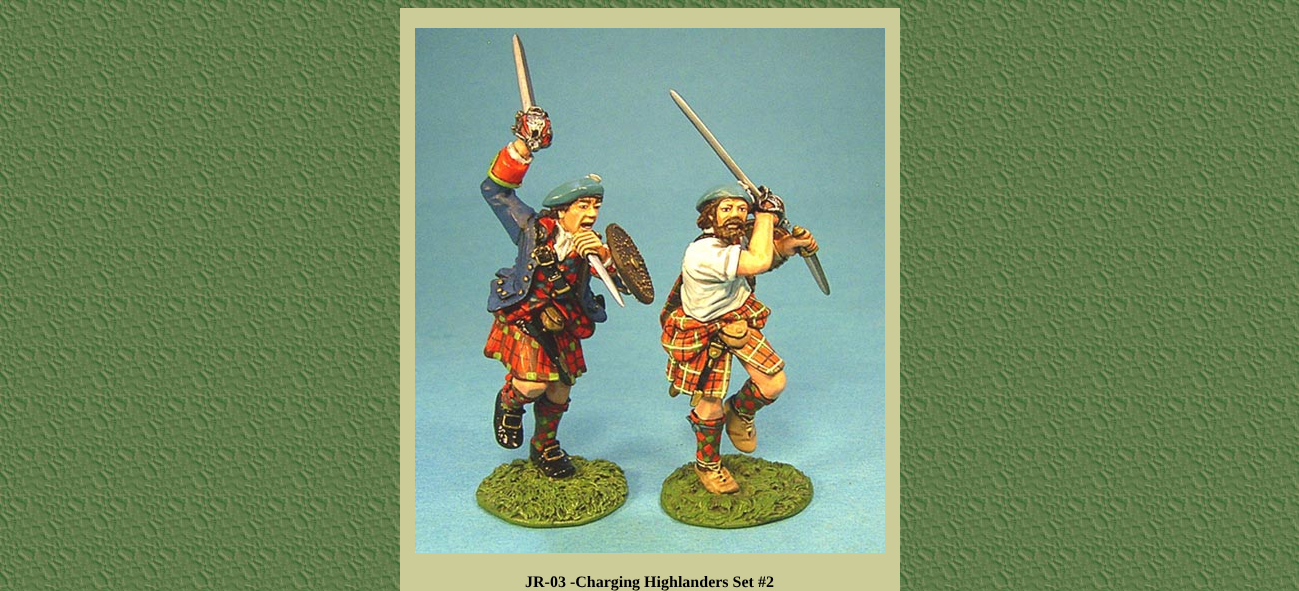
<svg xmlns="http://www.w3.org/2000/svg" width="1299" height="591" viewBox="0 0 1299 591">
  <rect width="100%" height="100%" fill="#fff"/>
  <image x="0" y="0" width="1299" height="591" href="img/1.png"/>
  <path d="M400 8h500v583H400z" fill="#cc9"/>
  <image x="415" y="28" width="470" height="525" href="img/2.png"/>
  <text x="525" y="587" font-family="Liberation Serif" font-size="16" font-weight="bold" fill="#000">JR-03 -Charging Highlanders Set #2</text>
</svg>
